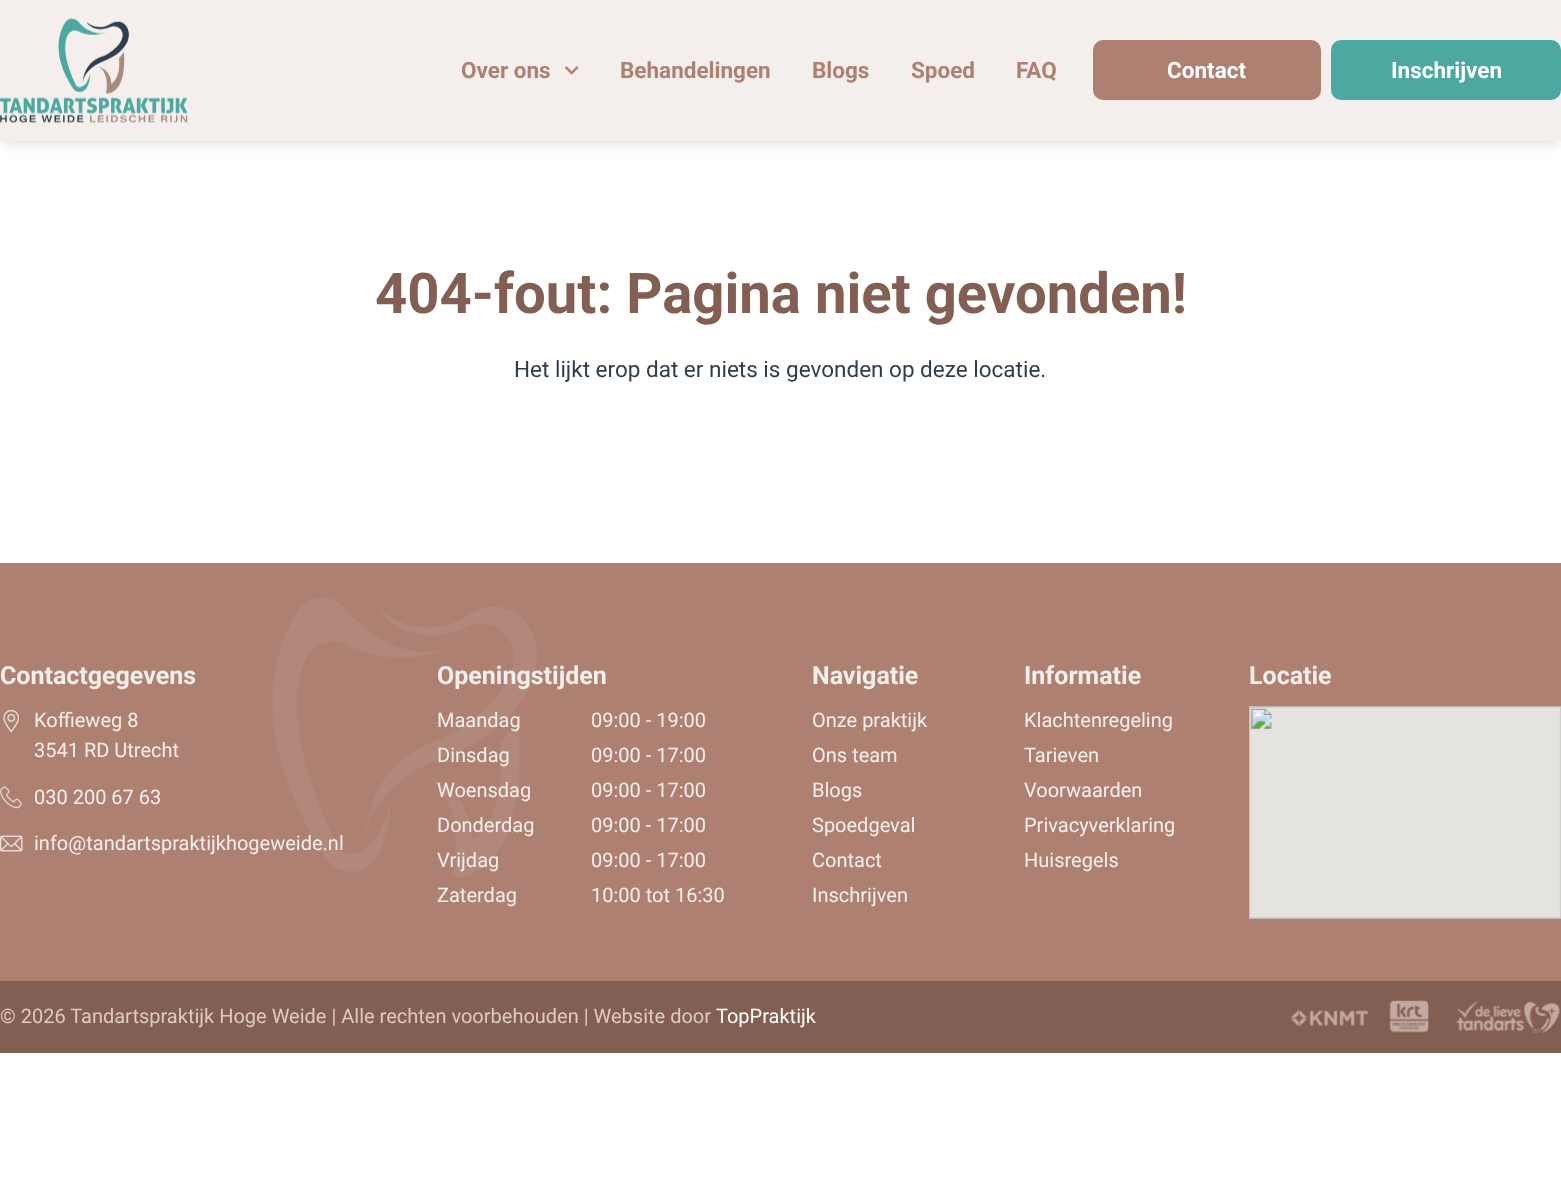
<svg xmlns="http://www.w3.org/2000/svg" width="1561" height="1198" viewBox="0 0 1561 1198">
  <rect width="100%" height="100%" fill="#fff"/>
  <path d="M3 3h1556v136H3z" fill="#0000003d" filter="blur(8px)"/>
  <path d="M0 0h1561v141H0z" fill="#f4eeec"/>
  <image x="0" y="18" width="188" height="105" href="img/1.png"/>
  <image x="565" y="66" width="14" height="9" href="img/2.png"/>
  <rect x="1093" y="40" width="228" height="60" rx="10" fill="#ad8072"/>
  <rect x="1331" y="40" width="230" height="60" rx="10" fill="#4ca9a1"/>
  <path d="M0 563h1561v418H0z" fill="#ad8072"/>
  <image x="272" y="597" width="265" height="281" href="img/3.png"/>
  <image x="3" y="710" width="17" height="23" href="img/4.png"/>
  <image x="0" y="786" width="22" height="23" href="img/5.png"/>
  <image x="0" y="835" width="23" height="17" href="img/6.png"/>
  <image x="1249" y="706" width="312" height="213" href="img/7.png"/>
  <path d="M0 981h1561v72H0z" fill="#835e52"/>
  <image x="1290" y="1000" width="270" height="34" href="img/8.png"/>
  <g font-family="Roboto" font-size="22.5" font-weight="bold" fill="#ad8072">
    <text x="461" y="78">Over ons</text>
    <text x="620" y="78">Behandelingen</text>
    <text x="812" y="78">Blogs</text>
    <text x="911" y="78">Spoed</text>
    <text x="1016" y="78">FAQ</text>
  </g>
  <g font-family="Roboto" font-size="22.5" font-weight="bold" fill="#fff">
    <text x="1167" y="78">Contact</text>
    <text x="1391" y="78">Inschrijven</text>
  </g>
  <text x="375" y="313" font-family="Roboto" font-size="56.25" font-weight="bold" fill="#835e52">404-fout: Pagina niet gevonden!</text>
  <text x="514" y="377" font-family="Roboto" font-size="22.5" fill="#2f3e4d">Het lijkt erop dat er niets is gevonden op deze locatie.</text>
  <text x="0" y="684" font-family="Roboto" font-size="25" font-weight="bold" fill="#f4eeec">Contactgegevens</text>
  <g font-family="Roboto" font-size="20" fill="#f4eeec">
    <text x="34" y="727">Koffieweg 8</text>
    <text x="34" y="757">3541 RD Utrecht</text>
    <text x="34" y="804">030 200 67 63</text>
    <text x="34" y="850">info@tandartspraktijkhogeweide.nl</text>
  </g>
  <text x="437" y="684" font-family="Roboto" font-size="25" font-weight="bold" fill="#f4eeec">Openingstijden</text>
  <g font-family="Roboto" font-size="20" fill="#f4eeec">
    <text x="437" y="727">Maandag</text>
    <text x="437" y="762">Dinsdag</text>
    <text x="437" y="797">Woensdag</text>
    <text x="437" y="832">Donderdag</text>
    <text x="437" y="867">Vrijdag</text>
    <text x="437" y="902">Zaterdag</text>
    <text x="591" y="727">09:00 - 19:00</text>
    <text x="591" y="762">09:00 - 17:00</text>
    <text x="591" y="797">09:00 - 17:00</text>
    <text x="591" y="832">09:00 - 17:00</text>
    <text x="591" y="867">09:00 - 17:00</text>
    <text x="591" y="902">10:00 tot 16:30</text>
  </g>
  <text x="812" y="684" font-family="Roboto" font-size="25" font-weight="bold" fill="#f4eeec">Navigatie</text>
  <g font-family="Roboto" font-size="20" fill="#f4eeec">
    <text x="812" y="727">Onze praktijk</text>
    <text x="812" y="762">Ons team</text>
    <text x="812" y="797">Blogs</text>
    <text x="812" y="832">Spoedgeval</text>
    <text x="812" y="867">Contact</text>
    <text x="812" y="902">Inschrijven</text>
  </g>
  <text x="1024" y="684" font-family="Roboto" font-size="25" font-weight="bold" fill="#f4eeec">Informatie</text>
  <g font-family="Roboto" font-size="20" fill="#f4eeec">
    <text x="1024" y="727">Klachtenregeling</text>
    <text x="1024" y="762">Tarieven</text>
    <text x="1024" y="797">Voorwaarden</text>
    <text x="1024" y="832">Privacyverklaring</text>
    <text x="1024" y="867">Huisregels</text>
  </g>
  <text x="1249" y="684" font-family="Roboto" font-size="25" font-weight="bold" fill="#f4eeec">Locatie</text>
  <text x="0" y="1023" font-family="Roboto" font-size="20" fill="#dec9c3">© 2026 Tandartspraktijk Hoge Weide | Alle rechten voorbehouden | Website door</text>
  <text x="716" y="1023" font-family="Roboto" font-size="20" fill="#fff">TopPraktijk</text>
</svg>
